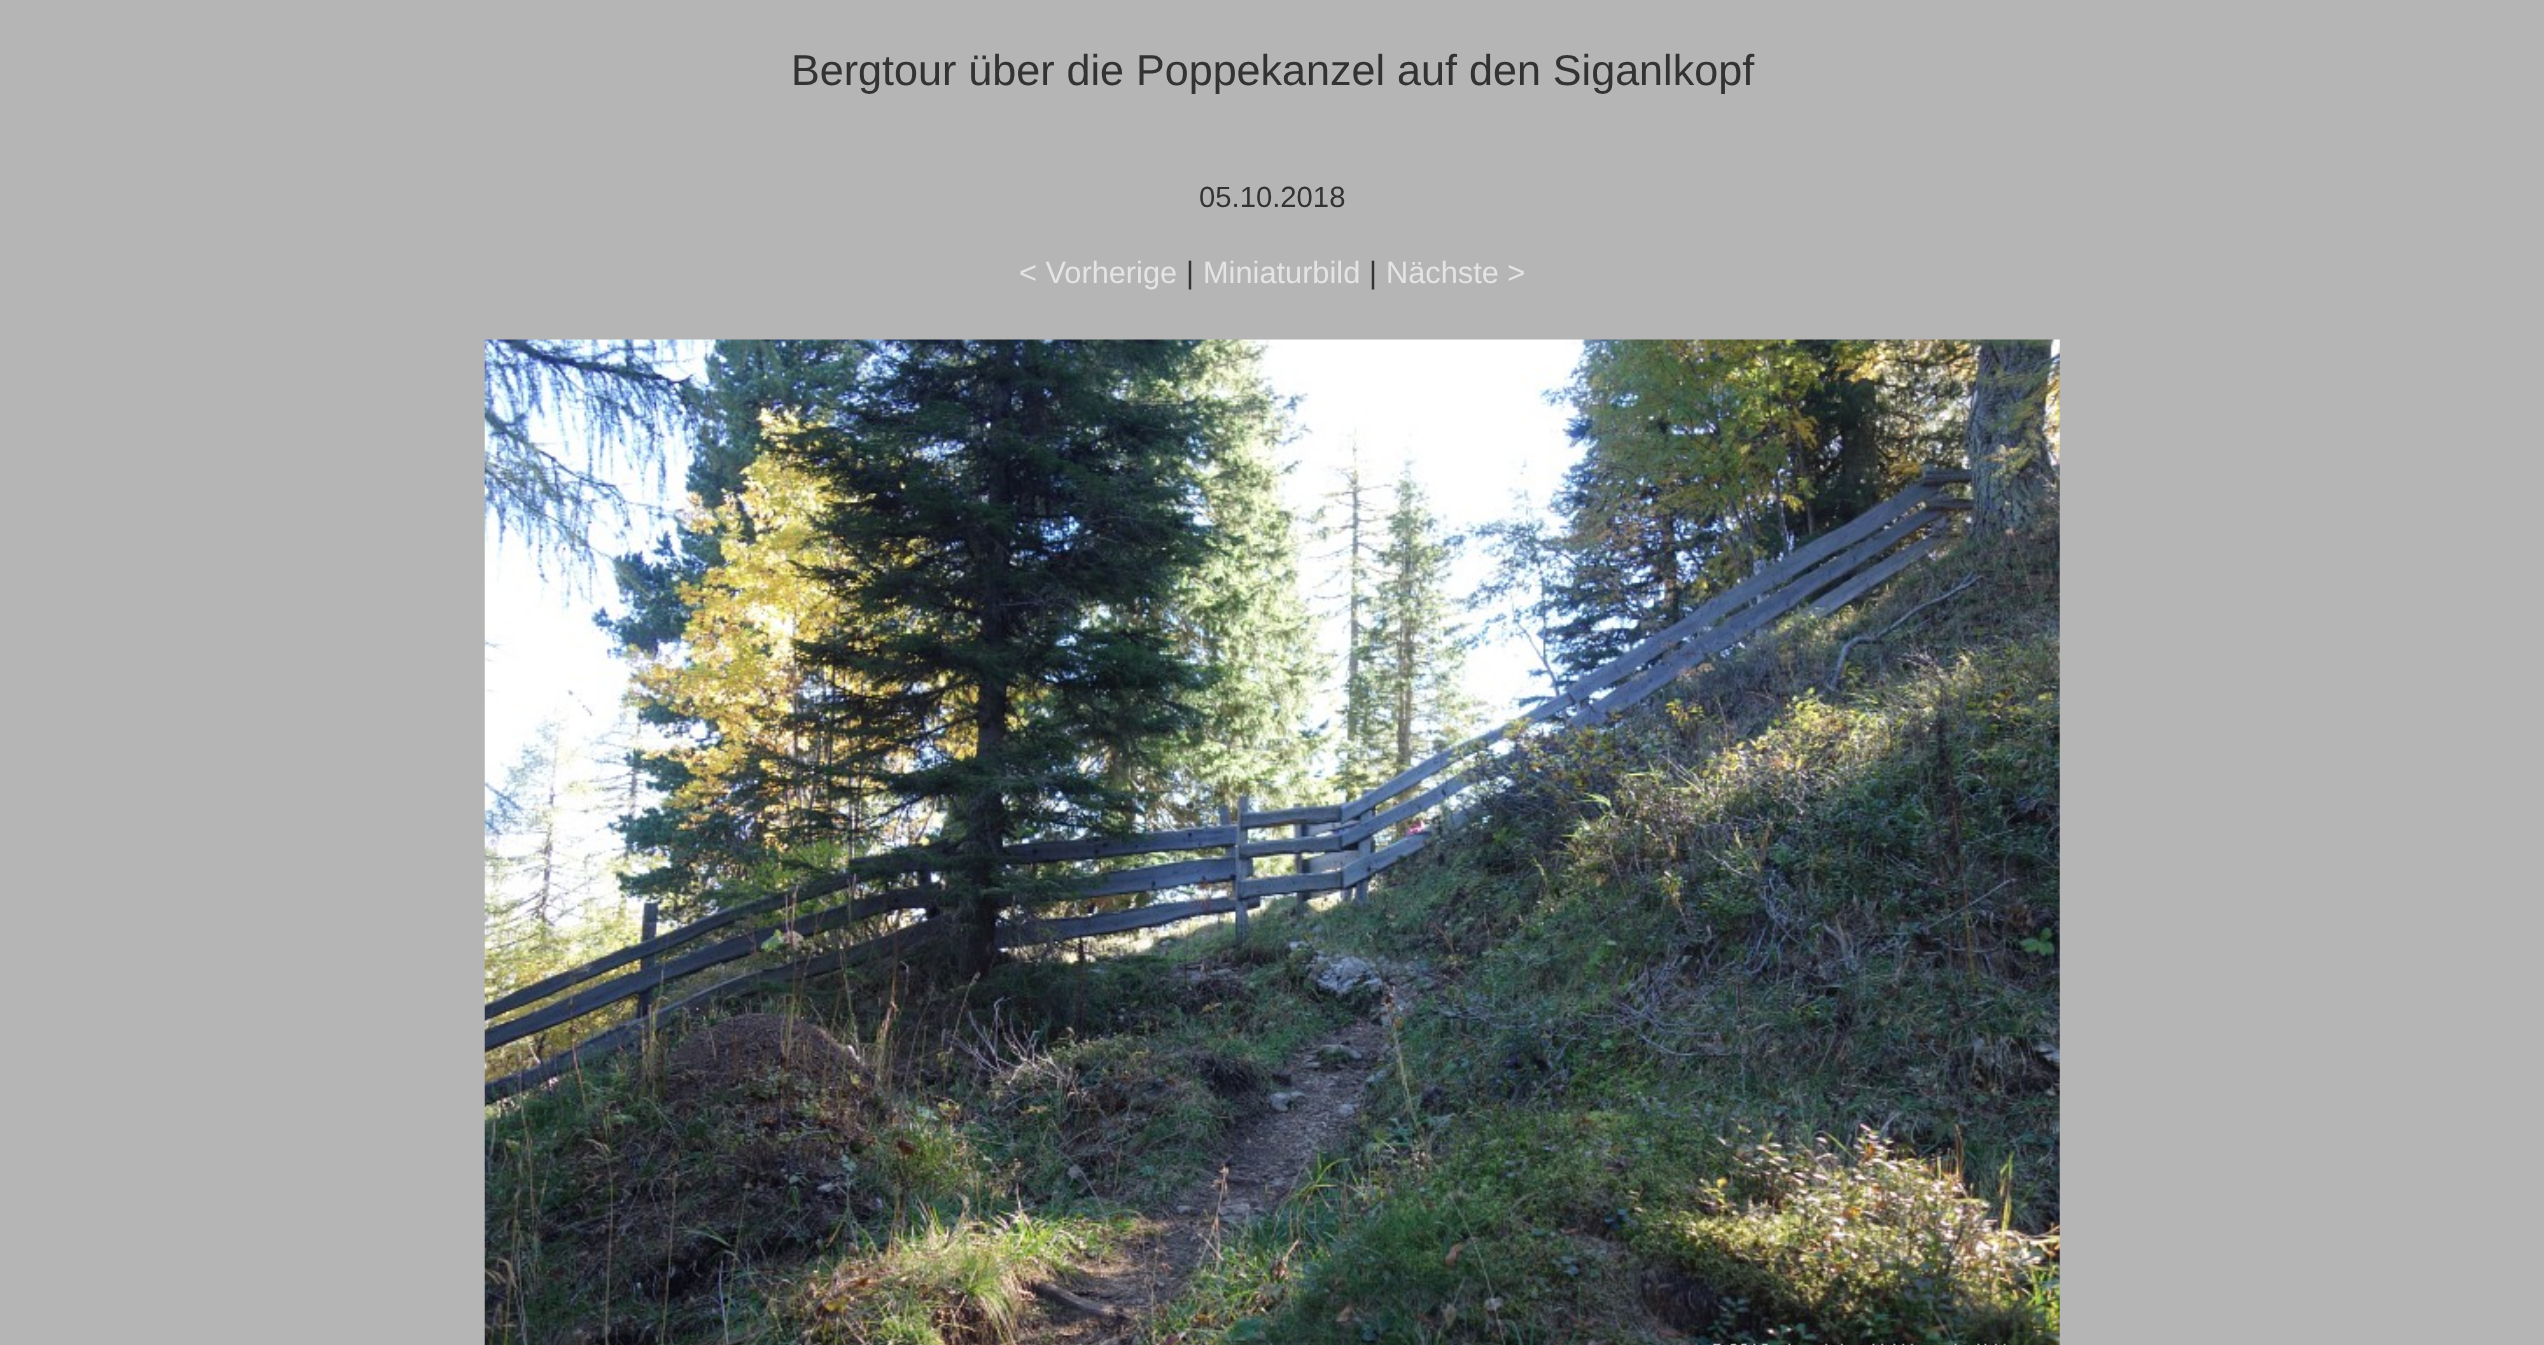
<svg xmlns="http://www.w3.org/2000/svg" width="2544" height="1345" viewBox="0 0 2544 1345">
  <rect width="100%" height="100%" fill="#b5b5b5"/>
  <image x="484" y="339" width="1576" height="1006" href="img/1.png"/>
  <text x="791" y="85" font-family="Liberation Sans" font-size="43.1" fill="#333">Bergtour über die Poppekanzel auf den Siganlkopf</text>
  <text x="1199" y="207" font-family="Liberation Sans" font-size="29.25" fill="#333">05.10.2018</text>
  <text x="1019" y="283" font-family="Liberation Sans" font-size="30.75" fill="#e4e4e4">&lt; Vorherige</text>
  <text x="1186" y="283" font-family="Liberation Sans" font-size="30.75" fill="#333">|</text>
  <text x="1203" y="283" font-family="Liberation Sans" font-size="30.75" fill="#e4e4e4">Miniaturbild</text>
  <text x="1369" y="283" font-family="Liberation Sans" font-size="30.75" fill="#333">|</text>
  <text x="1386" y="283" font-family="Liberation Sans" font-size="30.75" fill="#e4e4e4">Nächste &gt;</text>
</svg>
